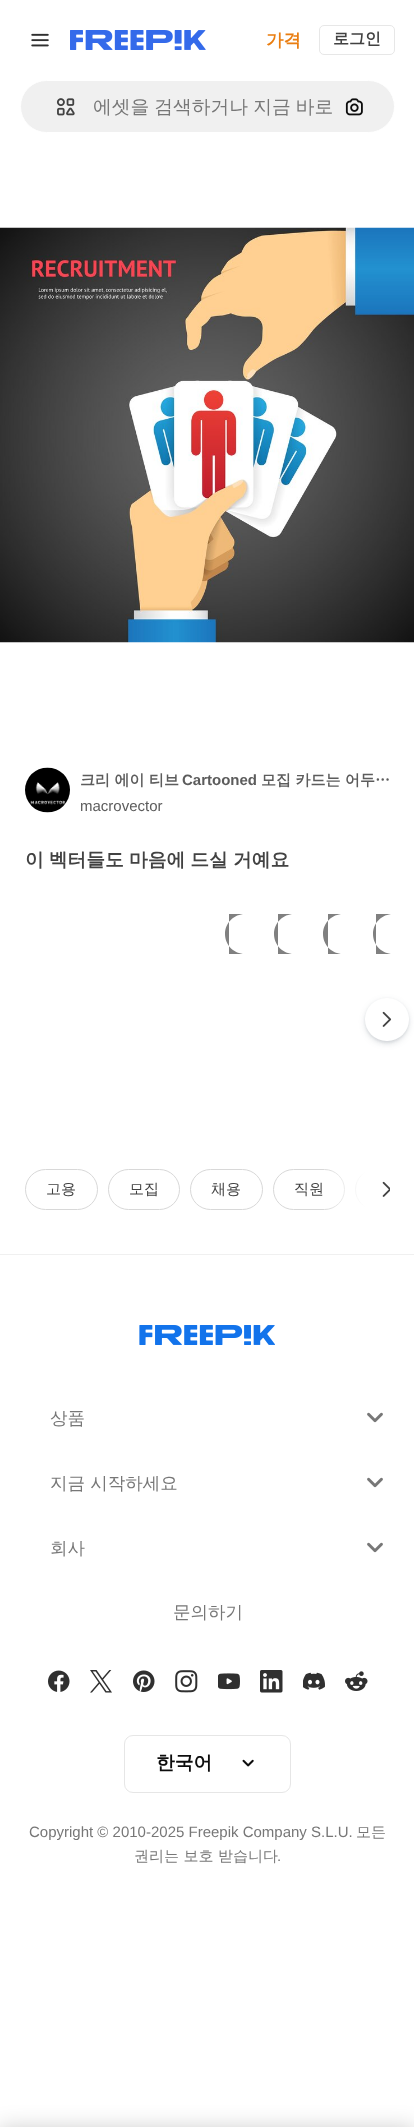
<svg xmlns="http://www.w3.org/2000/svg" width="414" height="2127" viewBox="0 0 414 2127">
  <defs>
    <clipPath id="clip1"><path d="M25 1169h365v41H25z"/></clipPath>
    <linearGradient id="g1" gradientUnits="userSpaceOnUse" x1="365" y1="1189" x2="321" y2="1189"><stop offset="0" stop-color="#fff"/><stop offset="1" stop-color="#fff" stop-opacity="0"/></linearGradient>
  </defs>
  <rect width="100%" height="100%" fill="#fff"/>
  <image x="31" y="33" width="18" height="14" href="img/1.png"/>
  <image x="70" y="30" width="136" height="20" href="img/2.png"/>
  <rect x="319.5" y="25.5" width="75" height="29" rx="4.5" fill="none" stroke="#e7e7e7"/>
  <rect x="20.5" y="80.5" width="374" height="52" rx="26" fill="#f0f0f0" stroke="#fff"/>
  <image x="56" y="98" width="19" height="18" href="img/3.png"/>
  <image x="345" y="98" width="18" height="18" href="img/4.png"/>
  <image x="0" y="227" width="414" height="416" href="img/5.png"/>
  <image x="25" y="767" width="45" height="46" href="img/6.png"/>
  <path d="M245 914H229V954H245C234 954 225 945 225 934C225 923 234 914 245 914Z" fill="#808080"/>
  <path d="M294 914H278V954H294C283 954 274 945 274 934C274 923 283 914 294 914Z" fill="#808080"/>
  <path d="M343 914H328V954H343C332 954 323 945 323 934C323 923 332 914 343 914Z" fill="#808080"/>
  <path d="M393 914H376V954H393C382 954 373 945 373 934C373 923 382 914 393 914Z" fill="#808080"/>
  <rect x="365" y="1000" width="44" height="44" rx="22" fill="#37495726" filter="blur(3px)"/>
  <rect x="365" y="999" width="44" height="44" rx="22" fill="#3749571a" filter="blur(1px)"/>
  <rect x="365" y="998" width="44" height="43" rx="21.5" fill="#fff"/>
  <image x="382" y="1011" width="10" height="16" href="img/7.png"/>
  <rect x="25.5" y="1169.5" width="72" height="40" rx="20" fill="none" stroke="#d8d8d8"/>
  <rect x="108.5" y="1169.5" width="71" height="40" rx="20" fill="none" stroke="#d8d8d8"/>
  <rect x="190.5" y="1169.5" width="72" height="40" rx="20" fill="none" stroke="#d8d8d8"/>
  <rect x="273.5" y="1169.5" width="71" height="40" rx="20" fill="none" stroke="#d8d8d8"/>
  <g clip-path="url(#clip1)">
    <rect x="355.5" y="1169.5" width="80" height="40" rx="20" fill="none" stroke="#d8d8d8"/>
  </g>
  <path d="M365 1169h25v41H365z" fill="#fff"/>
  <path d="M324 1169h41v41H324z" fill="url(#g1)"/>
  <image x="382" y="1181" width="8" height="16" href="img/8.png"/>
  <path d="M0 1254h414v1H0z" fill="#f0f0f0"/>
  <image x="139" y="1325" width="136" height="20" href="img/9.png"/>
  <image x="367" y="1412" width="16" height="11" href="img/10.png"/>
  <image x="367" y="1477" width="16" height="11" href="img/10.png"/>
  <image x="367" y="1542" width="16" height="11" href="img/10.png"/>
  <image x="48" y="1670" width="22" height="22" href="img/11.png"/>
  <image x="90" y="1670" width="22" height="23" href="img/12.png"/>
  <image x="133" y="1670" width="22" height="22" href="img/13.png"/>
  <image x="175" y="1670" width="23" height="23" href="img/14.png"/>
  <image x="218" y="1673" width="22" height="17" href="img/15.png"/>
  <image x="260" y="1670" width="23" height="23" href="img/16.png"/>
  <image x="303" y="1672" width="22" height="18" href="img/17.png"/>
  <image x="345" y="1671" width="23" height="20" href="img/18.png"/>
  <rect x="124.5" y="1735.5" width="166" height="57" rx="8.5" fill="none" stroke="#e6e6e6"/>
  <image x="242" y="1759" width="12" height="8" href="img/19.png"/>
  <path d="M0 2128h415v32H0z" fill="#00000033" filter="blur(11px)"/>
  <text x="266" y="46" font-family="WenQuanYi Zen Hei" font-size="17.5" font-weight="bold" fill="#ea7e11">가격</text>
  <text x="333" y="44" font-family="WenQuanYi Zen Hei" font-size="16" font-weight="bold" fill="#424242">로그인</text>
  <text x="93" y="113" word-spacing="-0.5" font-family="WenQuanYi Zen Hei" font-size="18.75" font-weight="500" fill="#777">에셋을 검색하거나 지금 바로</text>
  <text x="80" y="785" font-family="WenQuanYi Zen Hei" font-size="15" font-weight="bold" fill="#5c5c5c">크리 에이 티브</text>
  <text x="182" y="785" font-family="Liberation Sans" font-size="15" font-weight="bold" fill="#5c5c5c">Cartooned</text>
  <text x="261" y="785" font-family="WenQuanYi Zen Hei" font-size="15" font-weight="bold" fill="#5c5c5c">모집 카드는 어두…</text>
  <text x="80" y="811" font-family="Liberation Sans" font-size="15" fill="#5c5c5c">macrovector</text>
  <text x="25" y="866" word-spacing="-0.5" font-family="WenQuanYi Zen Hei" font-size="18.75" font-weight="bold" fill="#424242">이 벡터들도 마음에 드실 거예요</text>
  <g font-family="WenQuanYi Zen Hei" font-size="15" font-weight="500" fill="#424242">
    <text x="46" y="1194">고용</text>
    <text x="129" y="1194">모집</text>
    <text x="211" y="1194">채용</text>
    <text x="294" y="1194">직원</text>
  </g>
  <g font-family="WenQuanYi Zen Hei" font-size="17.5" font-weight="500" fill="#777">
    <text x="50" y="1424">상품</text>
    <text x="50" y="1489">지금 시작하세요</text>
    <text x="50" y="1554">회사</text>
    <text x="173" y="1618">문의하기</text>
  </g>
  <text x="156" y="1769" font-family="WenQuanYi Zen Hei" font-size="18.75" font-weight="bold" fill="#0d0d0d">한국어</text>
  <text x="29" y="1837" font-family="Liberation Sans" font-size="15" fill="#777">Copyright © 2010-2025 Freepik Company S.L.U.</text>
  <g font-family="WenQuanYi Zen Hei" font-size="15" font-weight="500" fill="#777">
    <text x="356" y="1837">모든</text>
    <text x="134" y="1861">권리는 보호 받습니다</text>
  </g>
  <text x="277" y="1861" font-family="Liberation Sans" font-size="15" fill="#777">.</text>
</svg>
